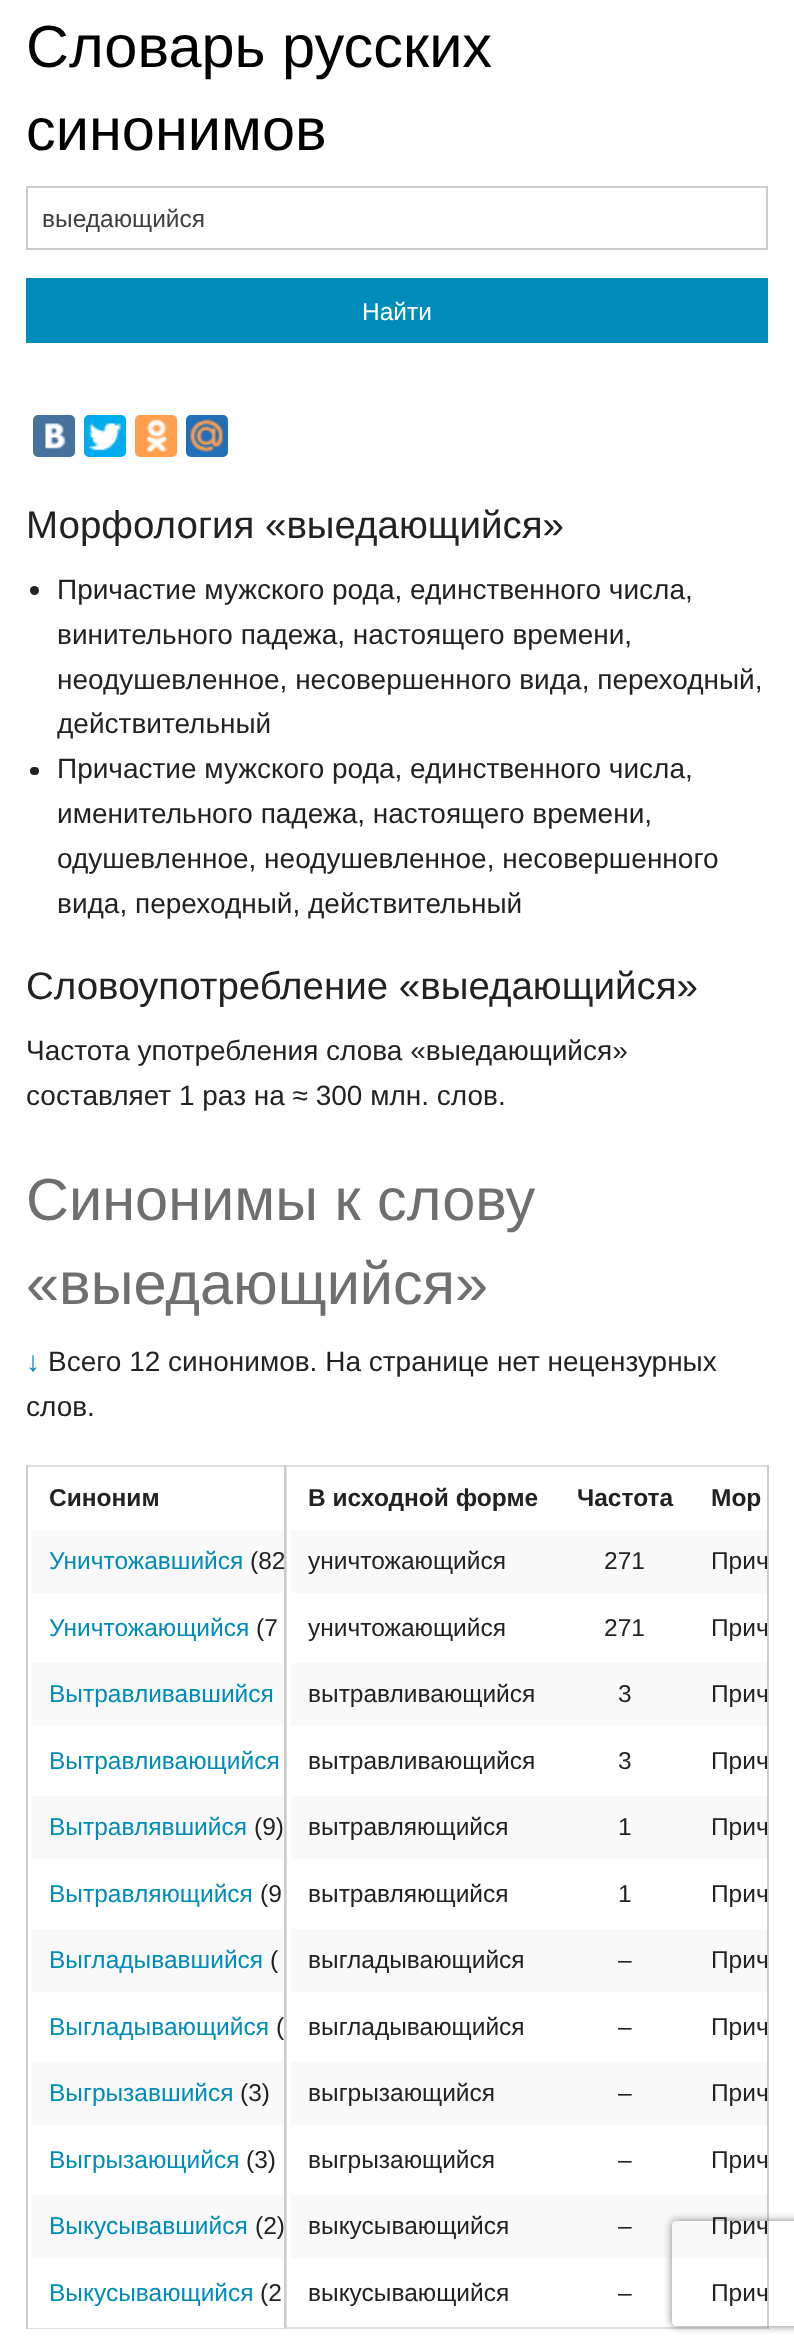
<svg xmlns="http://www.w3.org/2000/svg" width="794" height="2350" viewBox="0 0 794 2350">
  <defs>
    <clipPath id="clip1"><path d="M285 1465h482v864H285z"/></clipPath>
    <clipPath id="clip2"><path d="M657 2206H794V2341H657ZM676 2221H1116C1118 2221 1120 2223 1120 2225V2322C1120 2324 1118 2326 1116 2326H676C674 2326 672 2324 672 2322V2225C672 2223 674 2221 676 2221Z" clip-rule="evenodd"/></clipPath>
    <clipPath id="clip3"><path d="M695 1530h72v63H695z"/></clipPath>
    <clipPath id="clip4"><path d="M695 1596h72v63H695z"/></clipPath>
    <clipPath id="clip5"><path d="M695 1663h72v63H695z"/></clipPath>
    <clipPath id="clip6"><path d="M695 1729h72v63H695z"/></clipPath>
    <clipPath id="clip7"><path d="M695 1796h72v63H695z"/></clipPath>
    <clipPath id="clip8"><path d="M695 1862h72v63H695z"/></clipPath>
    <clipPath id="clip9"><path d="M695 1929h72v63H695z"/></clipPath>
    <clipPath id="clip10"><path d="M695 1995h72v63H695z"/></clipPath>
    <clipPath id="clip11"><path d="M695 2062h72v63H695z"/></clipPath>
    <clipPath id="clip12"><path d="M695 2128h72v63H695z"/></clipPath>
    <clipPath id="clip13"><path d="M695 2195h72v63H695z"/></clipPath>
    <clipPath id="clip14"><path d="M695 2261h72v63H695z"/></clipPath>
  </defs>
  <rect width="100%" height="100%" fill="#fff"/>
  <path d="M27 187h740v62H27z" fill="none" stroke="#ccc" stroke-width="2"/>
  <path d="M26 278h742v65H26z" fill="#008cba"/>
  <rect x="33" y="415" width="42" height="42" rx="5" fill="#48729e"/>
  <image x="45" y="423" width="21" height="26" href="img/1.png"/>
  <rect x="84" y="415" width="42" height="42" rx="5" fill="#00aced"/>
  <image x="88" y="423" width="34" height="28" href="img/2.png"/>
  <rect x="135" y="415" width="42" height="42" rx="5" fill="#ff9f4d"/>
  <image x="146" y="419" width="21" height="33" href="img/3.png"/>
  <rect x="186" y="415" width="42" height="42" rx="5" fill="#226eb7"/>
  <image x="190" y="419" width="33" height="33" href="img/4.png"/>
  <circle cx="34.5" cy="590.5" r="4.5" fill="#222"/>
  <rect x="30" y="767" width="9" height="8" rx="4" fill="#222"/>
  <path d="M767 1465h2v864H767z" fill="#ccc"/>
  <g clip-path="url(#clip1)">
    <path d="M286 1466h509v862H286z" fill="none" stroke="#ddd" stroke-width="2"/>
  </g>
  <path d="M284 1465h2v864H284z" fill="#ccc"/>
  <path d="M26 1465h2v864H26z" fill="#ccc"/>
  <path d="M28 1465h256v2H28z" fill="#ddd"/>
  <path d="M28 2328h256v1H28z" fill="#ddd"/>
  <path d="M32 1530h252v63H32z" fill="#f9f9f9"/>
  <path d="M32 1663h252v63H32z" fill="#f9f9f9"/>
  <path d="M32 1796h252v63H32z" fill="#f9f9f9"/>
  <path d="M32 1929h252v63H32z" fill="#f9f9f9"/>
  <path d="M32 2062h252v63H32z" fill="#f9f9f9"/>
  <path d="M32 2195h252v63H32z" fill="#f9f9f9"/>
  <path d="M291 1530h476v63H291z" fill="#f9f9f9"/>
  <path d="M291 1663h476v63H291z" fill="#f9f9f9"/>
  <path d="M291 1796h476v63H291z" fill="#f9f9f9"/>
  <path d="M291 1929h476v63H291z" fill="#f9f9f9"/>
  <path d="M291 2062h476v63H291z" fill="#f9f9f9"/>
  <path d="M291 2195h476v63H291z" fill="#f9f9f9"/>
  <g clip-path="url(#clip2)">
    <rect x="672" y="2221" width="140" height="105" rx="4" fill="#808080" filter="blur(4.5px)"/>
  </g>
  <g font-family="Liberation Sans" font-size="59.5" fill="#000">
    <text x="26" y="67">Словарь русских</text>
    <text x="26" y="150">синонимов</text>
  </g>
  <text x="42" y="227" font-family="Liberation Sans" font-size="24.5" fill="#404040">выедающийся</text>
  <text x="362" y="320" font-family="Liberation Sans" font-size="24.5" fill="#fff">Найти</text>
  <text x="26" y="538" font-family="Liberation Sans" font-size="38.5" fill="#222">Морфология «выедающийся»</text>
  <g font-family="Liberation Sans" font-size="28" fill="#222">
    <text x="57" y="599">Причастие мужского рода, единственного числа,</text>
    <text x="57" y="644">винительного падежа, настоящего времени,</text>
    <text x="57" y="689">неодушевленное, несовершенного вида, переходный,</text>
    <text x="57" y="733">действительный</text>
    <text x="57" y="778">Причастие мужского рода, единственного числа,</text>
    <text x="57" y="823">именительного падежа, настоящего времени,</text>
    <text x="57" y="868">одушевленное, неодушевленное, несовершенного</text>
    <text x="57" y="913">вида, переходный, действительный</text>
  </g>
  <text x="26" y="999" font-family="Liberation Sans" font-size="38.5" fill="#222">Словоупотребление «выедающийся»</text>
  <g font-family="Liberation Sans" font-size="28" fill="#222">
    <text x="26" y="1060">Частота употребления слова «выедающийся»</text>
    <text x="26" y="1105">составляет 1 раз на ≈ 300 млн. слов.</text>
  </g>
  <g font-family="Liberation Sans" font-size="59.5" fill="#6f6f6f">
    <text x="26" y="1220">Синонимы к слову</text>
    <text x="26" y="1304">«выедающийся»</text>
  </g>
  <text x="26" y="1371" font-family="Liberation Sans" font-size="28" fill="#008cba">↓</text>
  <g font-family="Liberation Sans" font-size="28" fill="#222">
    <text x="48" y="1371">Всего 12 синонимов. На странице нет нецензурных</text>
    <text x="26" y="1416">слов.</text>
  </g>
  <text x="49" y="1506" font-family="Liberation Sans" font-size="24.5" font-weight="bold" fill="#222">Синоним</text>
  <text x="49" y="1569" font-family="Liberation Sans" font-size="24.5" fill="#008cba">Уничтожавшийся</text>
  <text x="250" y="1569" font-family="Liberation Sans" font-size="24.5" fill="#222">(82</text>
  <text x="49" y="1636" font-family="Liberation Sans" font-size="24.5" fill="#008cba">Уничтожающийся</text>
  <text x="256" y="1636" font-family="Liberation Sans" font-size="24.5" fill="#222">(7</text>
  <g font-family="Liberation Sans" font-size="24.5" fill="#008cba">
    <text x="49" y="1702">Вытравливавшийся</text>
    <text x="49" y="1769">Вытравливающийся</text>
    <text x="49" y="1835">Вытравлявшийся</text>
  </g>
  <text x="254" y="1835" font-family="Liberation Sans" font-size="24.5" fill="#222">(9)</text>
  <text x="49" y="1902" font-family="Liberation Sans" font-size="24.5" fill="#008cba">Вытравляющийся</text>
  <text x="260" y="1902" font-family="Liberation Sans" font-size="24.5" fill="#222">(9</text>
  <text x="49" y="1968" font-family="Liberation Sans" font-size="24.5" fill="#008cba">Выгладывавшийся</text>
  <text x="270" y="1968" font-family="Liberation Sans" font-size="24.5" fill="#222">(</text>
  <text x="49" y="2035" font-family="Liberation Sans" font-size="24.5" fill="#008cba">Выгладывающийся</text>
  <text x="276" y="2035" font-family="Liberation Sans" font-size="24.5" fill="#222">(</text>
  <text x="49" y="2101" font-family="Liberation Sans" font-size="24.5" fill="#008cba">Выгрызавшийся</text>
  <text x="240" y="2101" font-family="Liberation Sans" font-size="24.5" fill="#222">(3)</text>
  <text x="49" y="2168" font-family="Liberation Sans" font-size="24.5" fill="#008cba">Выгрызающийся</text>
  <text x="246" y="2168" font-family="Liberation Sans" font-size="24.5" fill="#222">(3)</text>
  <text x="49" y="2234" font-family="Liberation Sans" font-size="24.5" fill="#008cba">Выкусывавшийся</text>
  <text x="255" y="2234" font-family="Liberation Sans" font-size="24.5" fill="#222">(2)</text>
  <text x="49" y="2301" font-family="Liberation Sans" font-size="24.5" fill="#008cba">Выкусывающийся</text>
  <text x="260" y="2301" font-family="Liberation Sans" font-size="24.5" fill="#222">(2</text>
  <g font-family="Liberation Sans" font-size="24.5" font-weight="bold" fill="#222">
    <text x="308" y="1506">В исходной форме</text>
    <text x="577" y="1506">Частота</text>
    <text x="711" y="1506">Мор</text>
  </g>
  <g font-family="Liberation Sans" font-size="24.5" fill="#222">
    <text x="308" y="1569">уничтожающийся</text>
    <text x="604" y="1569">271</text>
  </g>
  <g clip-path="url(#clip3)">
    <text x="711" y="1569" font-family="Liberation Sans" font-size="24.5" fill="#222">Прич</text>
  </g>
  <g font-family="Liberation Sans" font-size="24.5" fill="#222">
    <text x="308" y="1636">уничтожающийся</text>
    <text x="604" y="1636">271</text>
  </g>
  <g clip-path="url(#clip4)">
    <text x="711" y="1636" font-family="Liberation Sans" font-size="24.5" fill="#222">Прич</text>
  </g>
  <g font-family="Liberation Sans" font-size="24.5" fill="#222">
    <text x="308" y="1702">вытравливающийся</text>
    <text x="618" y="1702">3</text>
  </g>
  <g clip-path="url(#clip5)">
    <text x="711" y="1702" font-family="Liberation Sans" font-size="24.5" fill="#222">Прич</text>
  </g>
  <g font-family="Liberation Sans" font-size="24.5" fill="#222">
    <text x="308" y="1769">вытравливающийся</text>
    <text x="618" y="1769">3</text>
  </g>
  <g clip-path="url(#clip6)">
    <text x="711" y="1769" font-family="Liberation Sans" font-size="24.5" fill="#222">Прич</text>
  </g>
  <g font-family="Liberation Sans" font-size="24.5" fill="#222">
    <text x="308" y="1835">вытравляющийся</text>
    <text x="618" y="1835">1</text>
  </g>
  <g clip-path="url(#clip7)">
    <text x="711" y="1835" font-family="Liberation Sans" font-size="24.5" fill="#222">Прич</text>
  </g>
  <g font-family="Liberation Sans" font-size="24.5" fill="#222">
    <text x="308" y="1902">вытравляющийся</text>
    <text x="618" y="1902">1</text>
  </g>
  <g clip-path="url(#clip8)">
    <text x="711" y="1902" font-family="Liberation Sans" font-size="24.5" fill="#222">Прич</text>
  </g>
  <g font-family="Liberation Sans" font-size="24.5" fill="#222">
    <text x="308" y="1968">выгладывающийся</text>
    <text x="618" y="1968">–</text>
  </g>
  <g clip-path="url(#clip9)">
    <text x="711" y="1968" font-family="Liberation Sans" font-size="24.5" fill="#222">Прич</text>
  </g>
  <g font-family="Liberation Sans" font-size="24.5" fill="#222">
    <text x="308" y="2035">выгладывающийся</text>
    <text x="618" y="2035">–</text>
  </g>
  <g clip-path="url(#clip10)">
    <text x="711" y="2035" font-family="Liberation Sans" font-size="24.5" fill="#222">Прич</text>
  </g>
  <g font-family="Liberation Sans" font-size="24.5" fill="#222">
    <text x="308" y="2101">выгрызающийся</text>
    <text x="618" y="2101">–</text>
  </g>
  <g clip-path="url(#clip11)">
    <text x="711" y="2101" font-family="Liberation Sans" font-size="24.5" fill="#222">Прич</text>
  </g>
  <g font-family="Liberation Sans" font-size="24.5" fill="#222">
    <text x="308" y="2168">выгрызающийся</text>
    <text x="618" y="2168">–</text>
  </g>
  <g clip-path="url(#clip12)">
    <text x="711" y="2168" font-family="Liberation Sans" font-size="24.5" fill="#222">Прич</text>
  </g>
  <g font-family="Liberation Sans" font-size="24.5" fill="#222">
    <text x="308" y="2234">выкусывающийся</text>
    <text x="618" y="2234">–</text>
  </g>
  <g clip-path="url(#clip13)">
    <text x="711" y="2234" font-family="Liberation Sans" font-size="24.5" fill="#222">Прич</text>
  </g>
  <g font-family="Liberation Sans" font-size="24.5" fill="#222">
    <text x="308" y="2301">выкусывающийся</text>
    <text x="618" y="2301">–</text>
  </g>
  <g clip-path="url(#clip14)">
    <text x="711" y="2301" font-family="Liberation Sans" font-size="24.5" fill="#222">Прич</text>
  </g>
</svg>
